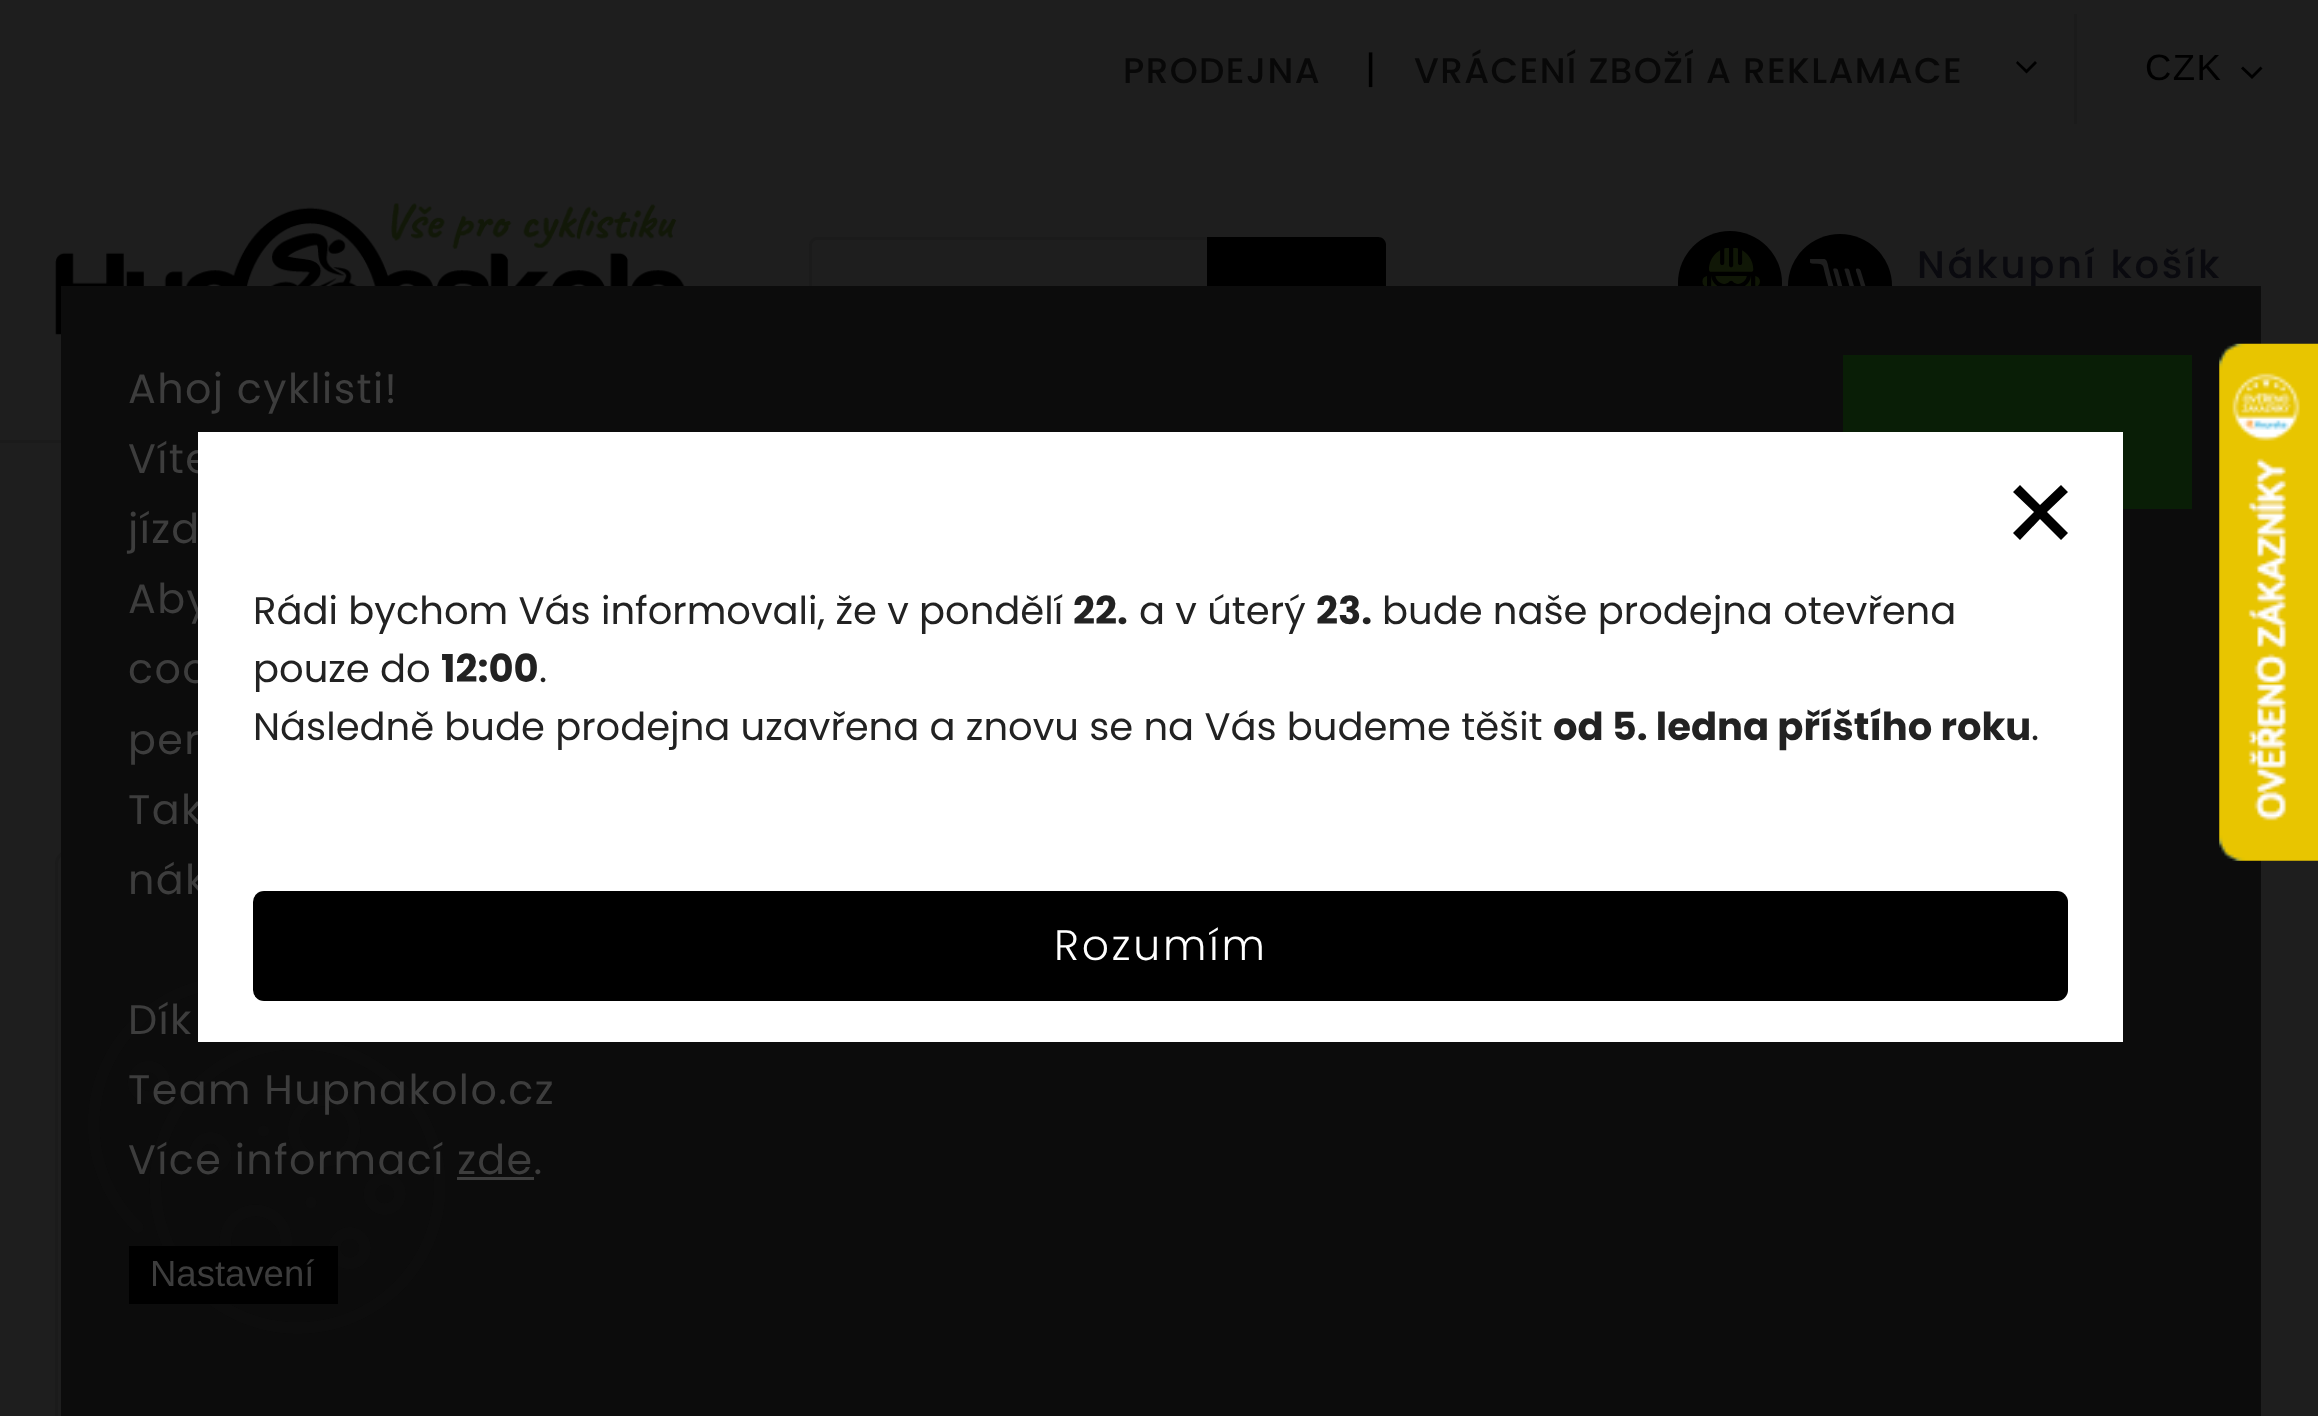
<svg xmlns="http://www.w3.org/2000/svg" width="2318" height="1416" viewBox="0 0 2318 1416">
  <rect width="100%" height="100%" fill="#3d3d3d"/>
  <path d="M2016 63L2017.5 61L2026.5 69.5L2035 61L2037 63L2026.5 73.5Z" fill="#000"/>
  <path d="M2074 14h3v110H2074z" fill="#363636"/>
  <path d="M2241 68.5L2243 66.5L2252 75L2260.5 66.5L2262.5 68.5L2252 79Z" fill="#000"/>
  <path d="M0 440h61v3H0z" fill="#363636"/>
  <image x="55" y="203" width="630" height="132" href="img/1.png"/>
  <path d="M817 238.5H1208.5V339.5H817C813.5 339.5 810.5 336.5 810.5 333V245C810.5 241.5 813.5 238.5 817 238.5Z" fill="none" stroke="#363636" stroke-width="3"/>
  <path d="M1207 237H1378C1382.5 237 1386 240.5 1386 245V333C1386 337.5 1382.5 341 1378 341H1207Z" fill="#000"/>
  <rect x="1678" y="231" width="104" height="105" rx="52" fill="#000"/>
  <image x="1702" y="248" width="58" height="38" href="img/2.png"/>
  <circle cx="1840" cy="286" r="52" fill="#000"/>
  <image x="1810" y="259" width="56" height="27" href="img/3.png"/>
  <rect x="56.5" y="851.5" width="726" height="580" rx="12.5" fill="none" stroke="#363636" stroke-width="3"/>
  <path d="M-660 -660h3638v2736H-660z" fill="#00000080" filter="blur(220px)"/>
  <text x="1123" y="83" font-family="Poppins" font-size="35.75" font-weight="500" letter-spacing="1.4" fill="#080808">PRODEJNA</text>
  <text x="1365" y="83" font-family="Poppins" font-size="38.5" fill="#000">|</text>
  <text x="1414" y="83" font-family="Poppins" font-size="35.75" font-weight="500" letter-spacing="1.4" fill="#080808">VRÁCENÍ ZBOŽÍ A REKLAMACE</text>
  <text x="2145" y="80" font-family="Liberation Sans" font-size="36.5" letter-spacing="1.4" fill="#000">CZK</text>
  <text x="1917" y="278" font-family="Poppins" font-size="38.5" font-weight="500" letter-spacing="2.75" fill="#0a0a0f">Nákupní košík</text>
  <path d="M61 286h2200v1130H61z" fill="#0c0c0c"/>
  <g font-family="Poppins" font-size="41.25" letter-spacing="1.4" fill="#3d3d3d">
    <text x="128" y="403">Ahoj cyklisti!</text>
    <text x="128" y="473">Víte</text>
    <text x="128" y="543">jízd</text>
    <text x="128" y="613">Aby</text>
    <text x="128" y="683">coo</text>
    <text x="128" y="754">per</text>
    <text x="128" y="824">Tak</text>
    <text x="128" y="894">nák</text>
  </g>
  <path d="M457 1177h77v3H457z" fill="#3d3d3d"/>
  <path d="M1843 355h349v154H1843z" fill="#091e06"/>
  <image x="88" y="981" width="357" height="353" href="img/4.png"/>
  <path d="M129 1246h209v58H129z" fill="#000"/>
  <text x="150" y="1286" font-family="Liberation Sans" font-size="36.5" fill="#3d3d3d">Nastavení</text>
  <g font-family="Poppins" font-size="41.25" letter-spacing="1.4" fill="#3d3d3d">
    <text x="128" y="1174">Více informací zde.</text>
    <text x="128" y="1104">Team Hupnakolo.cz</text>
    <text x="128" y="1034">Dík</text>
  </g>
  <image x="2219" y="343" width="99" height="518" href="img/5.png"/>
  <path d="M198 432h1925v610H198z" fill="#fff"/>
  <path d="M2020 485L2013 492L2034 512L2013 533L2020 540L2040 519L2061 540L2068 533L2047 512L2068 492L2061 485L2040 505Z" fill="#000"/>
  <text x="253" y="624" font-family="Poppins" font-size="38.5" fill="#222">Rádi bychom Vás informovali, že v pondělí</text>
  <text x="1073" y="624" font-family="Poppins" font-size="38.5" font-weight="bold" fill="#222">22.</text>
  <text x="1139" y="624" font-family="Poppins" font-size="38.5" fill="#222">a v úterý</text>
  <text x="1316" y="624" font-family="Poppins" font-size="38.5" font-weight="bold" fill="#222">23.</text>
  <g font-family="Poppins" font-size="38.5" fill="#222">
    <text x="1382" y="624">bude naše prodejna otevřena</text>
    <text x="253" y="682">pouze do</text>
  </g>
  <text x="441" y="682" font-family="Poppins" font-size="38.5" font-weight="bold" fill="#222">12:00</text>
  <g font-family="Poppins" font-size="38.5" fill="#222">
    <text x="539" y="682">.</text>
    <text x="253" y="740">Následně bude prodejna uzavřena a znovu se na Vás budeme těšit</text>
  </g>
  <text x="1553" y="740" font-family="Poppins" font-size="38.5" font-weight="bold" fill="#222">od 5. ledna příštího roku</text>
  <text x="2031" y="740" font-family="Poppins" font-size="38.5" fill="#222">.</text>
  <rect x="253" y="891" width="1815" height="110" rx="11" fill="#000"/>
  <text x="1054" y="960" font-family="Poppins" font-size="42.5" font-weight="300" letter-spacing="2.75" fill="#fff">Rozumím</text>
</svg>
